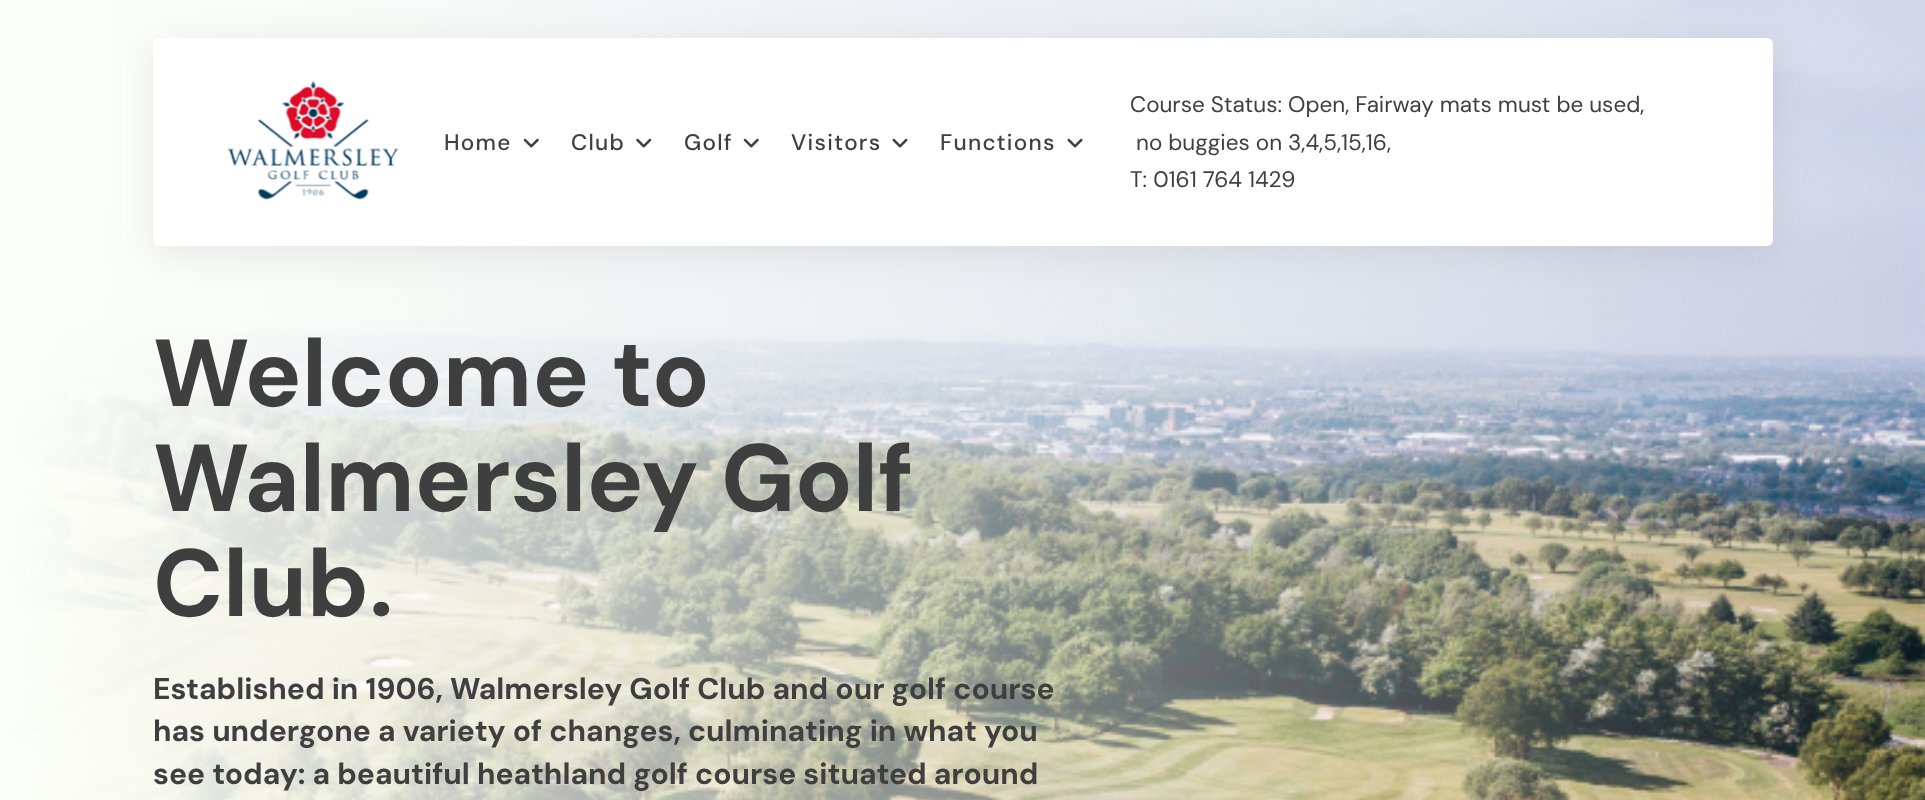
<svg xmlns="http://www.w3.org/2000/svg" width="1925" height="800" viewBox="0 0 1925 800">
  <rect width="100%" height="100%" fill="#fff"/>
  <image x="0" y="0" width="1925" height="800" href="img/5.png"/>
  <rect x="153" y="45" width="1620" height="209" rx="6" fill="#00000014" filter="blur(19px)"/>
  <rect x="153" y="38" width="1620" height="208" rx="6" fill="#fff"/>
  <image x="227" y="81" width="172" height="119" href="img/1.png"/>
  <image x="523" y="138" width="16" height="10" href="img/2.png"/>
  <image x="636" y="138" width="16" height="10" href="img/3.png"/>
  <image x="743" y="138" width="16" height="10" href="img/2.png"/>
  <image x="892" y="138" width="16" height="10" href="img/4.png"/>
  <image x="1067" y="138" width="16" height="10" href="img/4.png"/>
  <g font-family="DM Sans" font-size="22.5" font-weight="500" letter-spacing="1.25" fill="#3f3f3f">
    <text x="444" y="150">Home</text>
    <text x="571" y="150">Club</text>
    <text x="684" y="150">Golf</text>
    <text x="791" y="150">Visitors</text>
    <text x="940" y="150">Functions</text>
  </g>
  <g font-family="DM Sans" font-size="22.5" fill="#3f3f3f">
    <text x="1130" y="112">Course Status: Open, Fairway mats must be used,</text>
    <text x="1136" y="150">no buggies on 3,4,5,15,16,</text>
    <text x="1130" y="187">T: 0161 764 1429</text>
  </g>
  <g font-family="DM Sans" font-size="95" font-weight="bold" fill="#3f3f3f">
    <text x="153" y="406">Welcome to</text>
    <text x="153" y="511">Walmersley Golf</text>
    <text x="153" y="616">Club.</text>
  </g>
  <g font-family="DM Sans" font-size="30" font-weight="bold" fill="#3f3f3f">
    <text x="153" y="699">Established in 1906, Walmersley Golf Club and our golf course</text>
    <text x="153" y="741">has undergone a variety of changes, culminating in what you</text>
    <text x="153" y="784">see today: a beautiful heathland golf course situated around</text>
  </g>
</svg>
